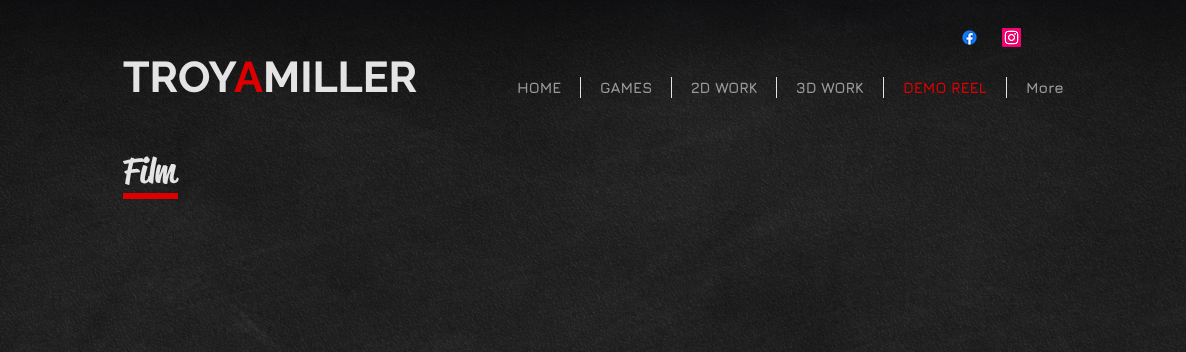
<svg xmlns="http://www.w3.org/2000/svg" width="1186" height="352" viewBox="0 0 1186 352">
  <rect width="100%" height="100%" fill="#000"/>
  <image x="0" y="0" width="1186" height="352" href="img/1.png"/>
  <image x="962" y="30" width="15" height="15" href="img/2.png"/>
  <image x="1002" y="28" width="19" height="19" href="img/3.png"/>
  <path d="M580 77h1v21H580z" fill="#e4e4e4"/>
  <path d="M671 77h1v21H671z" fill="#e4e4e4"/>
  <path d="M776 77h1v21H776z" fill="#e4e4e4"/>
  <path d="M883 77h1v21H883z" fill="#e4e4e4"/>
  <path d="M1006 77h1v21H1006z" fill="#e4e4e4"/>
  <path d="M123 193h55v6H123z" fill="#de0000"/>
  <text x="123" y="92" font-family="Raleway" font-size="43" font-weight="bold" fill="#e4e4e4">TROY</text>
  <text x="234" y="92" font-family="Raleway" font-size="43" font-weight="bold" fill="#de0000">A</text>
  <text x="263" y="92" font-family="Raleway" font-size="43" font-weight="bold" fill="#e4e4e4">MILLER</text>
  <g font-family="Jura" font-size="15" font-weight="bold" fill="#999">
    <text x="517" y="93">HOME</text>
    <text x="600" y="93">GAMES</text>
    <text x="691" y="93">2D WORK</text>
    <text x="796" y="93">3D WORK</text>
  </g>
  <text x="903" y="93" font-family="Jura" font-size="15" font-weight="bold" fill="#de0000">DEMO REEL</text>
  <text x="1026" y="93" font-family="Jura" font-size="15" font-weight="bold" fill="#999">More</text>
  <text x="123" y="182" font-family="'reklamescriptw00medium'" font-size="34" font-weight="500" fill="#e4e4e4">Film</text>
</svg>
